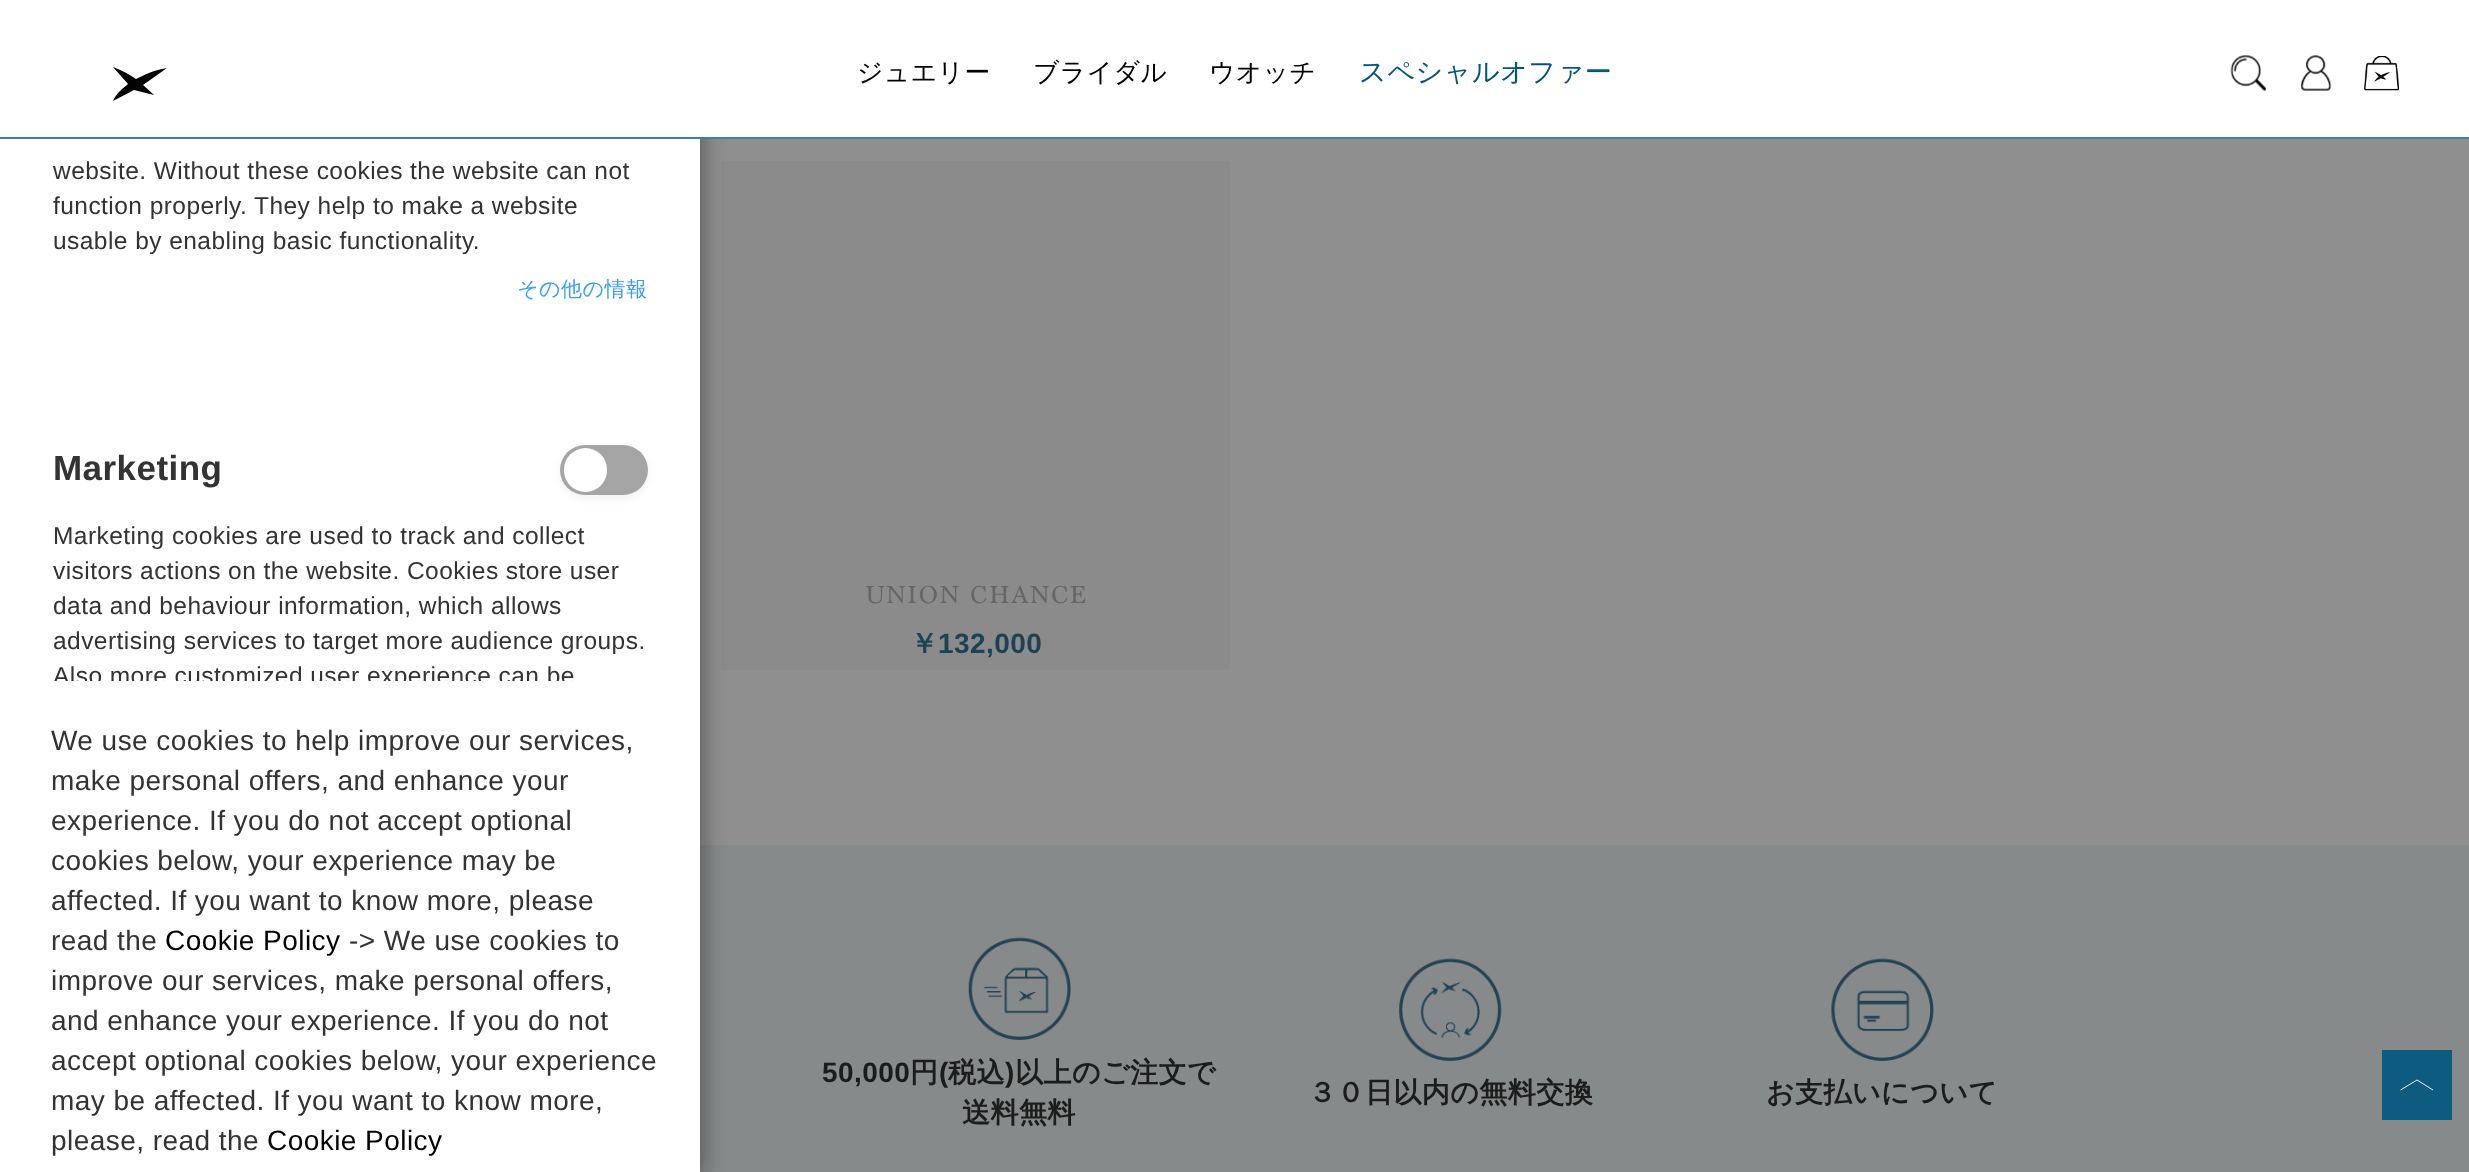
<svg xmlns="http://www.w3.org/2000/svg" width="2469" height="1172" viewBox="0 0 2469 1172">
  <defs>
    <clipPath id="clip1"><path d="M9 0h691v681H9z"/></clipPath>
  </defs>
  <rect width="100%" height="100%" fill="#8f8f8f"/>
  <path d="M721 161h509v509H721z" fill="#8b8b8b"/>
  <path d="M700 845h1769v327H700z" fill="#878a8a"/>
  <path d="M-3 -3h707v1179H-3z" fill="#00000059" filter="blur(10.5px)"/>
  <path d="M0 139h700v1033H0z" fill="#fff"/>
  <rect x="560" y="448" width="88" height="51" rx="25.5" fill="#0000000d" filter="blur(4.5px)"/>
  <rect x="560" y="445" width="88" height="50" rx="25" fill="#a5a5a5"/>
  <rect x="564" y="448" width="43" height="44" rx="21.5" fill="#fff"/>
  <path d="M0 0h2469v137H0z" fill="#fff"/>
  <path d="M153 94L143 85L167 68C154 70 144 75 136 79C129 74 121 70 113 67L128 84C122 89 116 94 113 101L134 90L154 95Z" fill="#020203" fill-rule="evenodd"/>
  <path d="M0 137h2469v2H0z" fill="#40819e"/>
  <image x="2230" y="55" width="36" height="36" href="img/1.png"/>
  <image x="2301" y="55" width="31" height="36" href="img/2.png"/>
  <image x="2364" y="56" width="35" height="35" href="img/3.png"/>
  <image x="968" y="937" width="103" height="103" href="img/4.png"/>
  <image x="1399" y="958" width="103" height="103" href="img/5.png"/>
  <image x="1831" y="958" width="103" height="103" href="img/6.png"/>
  <path d="M2382 1050h70v70H2382z" fill="#0d5b7e"/>
  <path d="M2400.5 1090L2417 1080L2433 1090" fill="none" stroke="#f3f3f3"/>
  <g font-family="Liberation Sans" font-size="24.5" letter-spacing="0.45" fill="#333">
    <text x="53" y="179">website. Without these cookies the website can not</text>
    <text x="53" y="214">function properly. They help to make a website</text>
    <text x="53" y="249">usable by enabling basic functionality.</text>
  </g>
  <text x="517" y="296" font-family="WenQuanYi Zen Hei" font-size="21" font-weight="500" letter-spacing="0.5" fill="#389dfe">その他の情報</text>
  <text x="53" y="480" font-family="Liberation Sans" font-size="35" font-weight="bold" letter-spacing="0.45" fill="#333">Marketing</text>
  <g font-family="Liberation Sans" font-size="24.5" letter-spacing="0.45" fill="#333">
    <text x="53" y="544">Marketing cookies are used to track and collect</text>
    <text x="53" y="579">visitors actions on the website. Cookies store user</text>
    <text x="53" y="614">data and behaviour information, which allows</text>
    <text x="53" y="649">advertising services to target more audience groups.</text>
  </g>
  <g clip-path="url(#clip1)">
    <text x="53" y="684" font-family="Liberation Sans" font-size="24.5" letter-spacing="0.45" fill="#333">Also more customized user experience can be</text>
  </g>
  <g font-family="Liberation Sans" font-size="28" letter-spacing="0.45" fill="#333">
    <text x="51" y="750">We use cookies to help improve our services,</text>
    <text x="51" y="790">make personal offers, and enhance your</text>
    <text x="51" y="830">experience. If you do not accept optional</text>
    <text x="51" y="870">cookies below, your experience may be</text>
    <text x="51" y="910">affected. If you want to know more, please</text>
    <text x="51" y="950">read the</text>
  </g>
  <text x="165" y="950" font-family="Liberation Sans" font-size="28" letter-spacing="0.45" fill="#000">Cookie Policy</text>
  <g font-family="Liberation Sans" font-size="28" letter-spacing="0.45" fill="#333">
    <text x="349" y="950">-&gt; We use cookies to</text>
    <text x="51" y="990">improve our services, make personal offers,</text>
    <text x="51" y="1030">and enhance your experience. If you do not</text>
    <text x="51" y="1070">accept optional cookies below, your experience</text>
    <text x="51" y="1110">may be affected. If you want to know more,</text>
    <text x="51" y="1150">please, read the</text>
  </g>
  <text x="267" y="1150" font-family="Liberation Sans" font-size="28" letter-spacing="0.45" fill="#000">Cookie Policy</text>
  <g font-family="WenQuanYi Zen Hei" font-size="25.75" font-weight="500" letter-spacing="0.5" fill="#000">
    <text x="857" y="81">ジュエリー</text>
    <text x="1033" y="81">ブライダル</text>
    <text x="1209" y="81">ウオッチ</text>
  </g>
  <text x="1359" y="81" font-family="WenQuanYi Zen Hei" font-size="27.1" font-weight="500" letter-spacing="0.5" fill="#00567d">スペシャルオファー</text>
  <text x="865" y="603" font-family="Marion" font-size="25.75" letter-spacing="1.75" fill="#666">UNION CHANCE</text>
  <text x="910" y="653" font-family="WenQuanYi Zen Hei" font-size="28" font-weight="bold" letter-spacing="0.45" fill="#1c4354">￥</text>
  <text x="938" y="653" font-family="Liberation Sans" font-size="28" font-weight="bold" letter-spacing="0.45" fill="#1c4354">132,000</text>
  <text x="822" y="1082" font-family="Liberation Sans" font-size="28" font-weight="bold" letter-spacing="0.45" fill="#1c1c1c">50,000</text>
  <text x="910" y="1082" font-family="WenQuanYi Zen Hei" font-size="28" font-weight="bold" letter-spacing="0.45" fill="#1c1c1c">円</text>
  <text x="939" y="1082" font-family="Liberation Sans" font-size="28" font-weight="bold" letter-spacing="0.45" fill="#1c1c1c">(</text>
  <text x="948" y="1082" font-family="WenQuanYi Zen Hei" font-size="28" font-weight="bold" letter-spacing="0.45" fill="#1c1c1c">税込</text>
  <text x="1005" y="1082" font-family="Liberation Sans" font-size="28" font-weight="bold" letter-spacing="0.45" fill="#1c1c1c">)</text>
  <g font-family="WenQuanYi Zen Hei" font-size="28" font-weight="bold" letter-spacing="0.45" fill="#1c1c1c">
    <text x="1015" y="1082">以上のご注文で</text>
    <text x="962" y="1122">送料無料</text>
    <text x="1308" y="1102">３０日以内の無料交換</text>
    <text x="1766" y="1102">お支払いについて</text>
  </g>
</svg>
